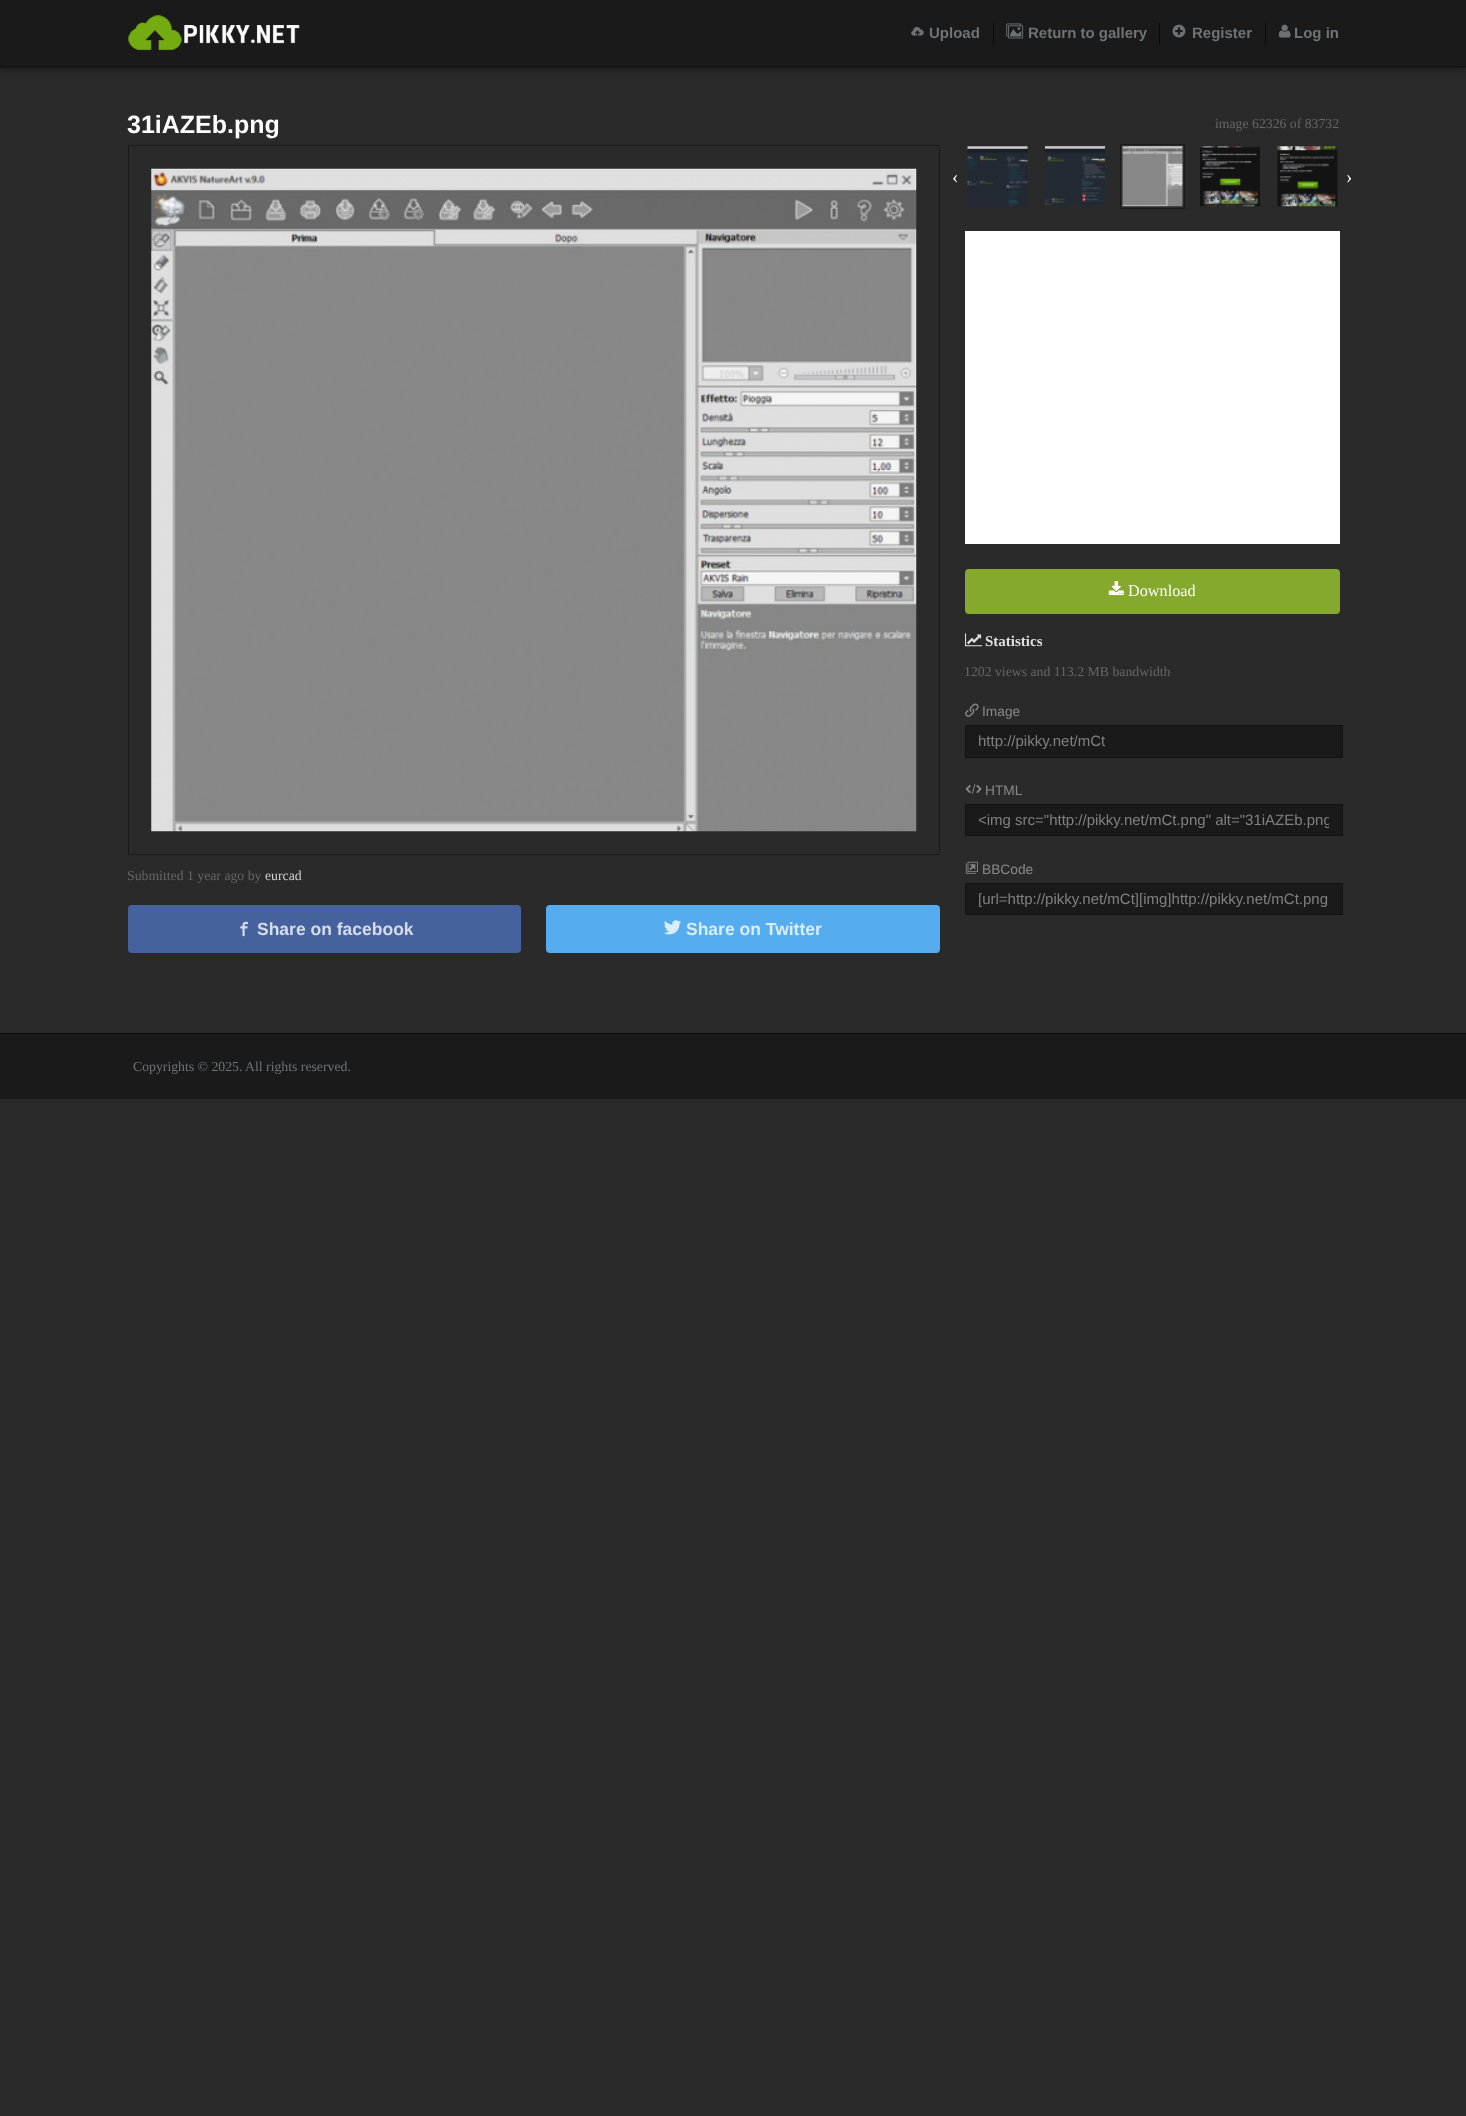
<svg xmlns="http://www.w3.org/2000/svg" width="1466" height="2116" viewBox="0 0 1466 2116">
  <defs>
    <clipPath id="clip1"><path d="M979 811h350v18H979z"/></clipPath>
  </defs>
  <rect width="100%" height="100%" fill="#2a2a2a"/>
  <path d="M0 4h1466v67H0z" fill="#00000047" filter="blur(3px)"/>
  <path d="M0 0h1466v68H0z" fill="#1a1a1a"/>
  <path d="M0 66h1466v1H0z" fill="#131313"/>
  <image x="127" y="15" width="173" height="36" href="img/1.png"/>
  <path d="M993 23h1v21H993z" fill="#080808"/>
  <image x="911" y="26" width="13" height="10" href="img/2.png"/>
  <path d="M1159 23h1v21H1159z" fill="#080808"/>
  <image x="1006" y="23" width="18" height="16" href="img/3.png"/>
  <path d="M1265 23h1v21H1265z" fill="#080808"/>
  <image x="1172" y="24" width="14" height="14" href="img/4.png"/>
  <image x="1278" y="24" width="13" height="14" href="img/5.png"/>
  <image x="967" y="146" width="61" height="61" href="img/6.png"/>
  <image x="1045" y="146" width="60" height="60" href="img/7.png"/>
  <path d="M1120.5 144.5h64v64H1120.5z" fill="none" stroke="#1a1a1a"/>
  <image x="1122" y="146" width="61" height="61" href="img/8.png"/>
  <image x="1200" y="146" width="60" height="61" href="img/9.png"/>
  <image x="1277" y="146" width="61" height="61" href="img/10.png"/>
  <path d="M965 231h375v313H965z" fill="#fff"/>
  <rect x="965" y="569" width="375" height="45" rx="4" fill="#85a92d"/>
  <image x="1108" y="581" width="16" height="15" href="img/11.png"/>
  <image x="965" y="633" width="18" height="14" href="img/12.png"/>
  <image x="965" y="703" width="14" height="14" href="img/13.png"/>
  <path d="M965.5 725.5h377v32H965.5z" fill="#1a1a1a" stroke="#121212"/>
  <image x="965" y="784" width="17" height="10" href="img/14.png"/>
  <path d="M965.5 804.5h377v31H965.5z" fill="#1a1a1a" stroke="#121212"/>
  <image x="965" y="861" width="13" height="13" href="img/15.png"/>
  <path d="M965.5 883.5h377v31H965.5z" fill="#1a1a1a" stroke="#121212"/>
  <path d="M128.5 145.5h811v709H128.5z" fill="none" stroke="#1a1a1a"/>
  <image x="151" y="168" width="766" height="664" href="img/16.png"/>
  <rect x="128" y="905" width="393" height="48" rx="4" fill="#46629e"/>
  <image x="240" y="921" width="8" height="16" href="img/17.png"/>
  <rect x="546" y="905" width="394" height="48" rx="4" fill="#55acee"/>
  <image x="664" y="920" width="17" height="15" href="img/18.png"/>
  <path d="M0 1034h1466v65H0z" fill="#1a1a1a"/>
  <path d="M0 1033h1466v1H0z" fill="#0b0b0b"/>
  <g font-family="Liberation Sans" font-size="15" font-weight="bold" fill="#707376">
    <text x="929" y="38">Upload</text>
    <text x="1028" y="38">Return to gallery</text>
    <text x="1192" y="38">Register</text>
    <text x="1294" y="38">Log in</text>
  </g>
  <text x="127" y="133" font-family="Liberation Sans" font-size="25" font-weight="bold" fill="#fdfdfd">31iAZEb.png</text>
  <text x="1215" y="128" font-family="Liberation Serif" font-size="13.75" fill="#666">image 62326 of 83732</text>
  <g font-family="Liberation Serif" font-size="19" fill="#fdfdfd">
    <text x="952" y="183">‹</text>
    <text x="1346" y="183">›</text>
  </g>
  <text x="1128" y="596" font-family="Liberation Serif" font-size="16.25" fill="#fdfdfd">Download</text>
  <text x="985" y="646" font-family="Liberation Serif" font-size="15" font-weight="bold" fill="#dfdfdf">Statistics</text>
  <text x="964" y="676" font-family="Liberation Serif" font-size="13.75" fill="#666">1202 views and 113.2 MB bandwidth</text>
  <text x="982" y="716" font-family="Liberation Sans" font-size="13.75" fill="#888">Image</text>
  <text x="978" y="746" font-family="Liberation Sans" font-size="15" fill="#808080">http://pikky.net/mCt</text>
  <text x="985" y="795" font-family="Liberation Sans" font-size="13.75" fill="#888">HTML</text>
  <g clip-path="url(#clip1)">
    <text x="978" y="825" font-family="Liberation Sans" font-size="15" fill="#808080">&lt;img src="http://pikky.net/mCt.png" alt="31iAZEb.png</text>
  </g>
  <text x="982" y="874" font-family="Liberation Sans" font-size="13.75" fill="#888">BBCode</text>
  <text x="978" y="904" font-family="Liberation Sans" font-size="15" fill="#808080">[url=http://pikky.net/mCt][img]http://pikky.net/mCt.png</text>
  <text x="127" y="880" font-family="Liberation Serif" font-size="13.75" fill="#666">Submitted 1 year ago by</text>
  <text x="265" y="880" font-family="Liberation Serif" font-size="13.75" fill="#d2d2d2">eurcad</text>
  <text x="257" y="935" font-family="Liberation Sans" font-size="17.5" font-weight="bold" fill="#d6dcea">Share on facebook</text>
  <text x="686" y="935" font-family="Liberation Sans" font-size="17.5" font-weight="bold" fill="#daedfb">Share on Twitter</text>
  <text x="133" y="1071" font-family="Liberation Serif" font-size="13.75" fill="#707376">Copyrights © 2025. All rights reserved.</text>
</svg>
